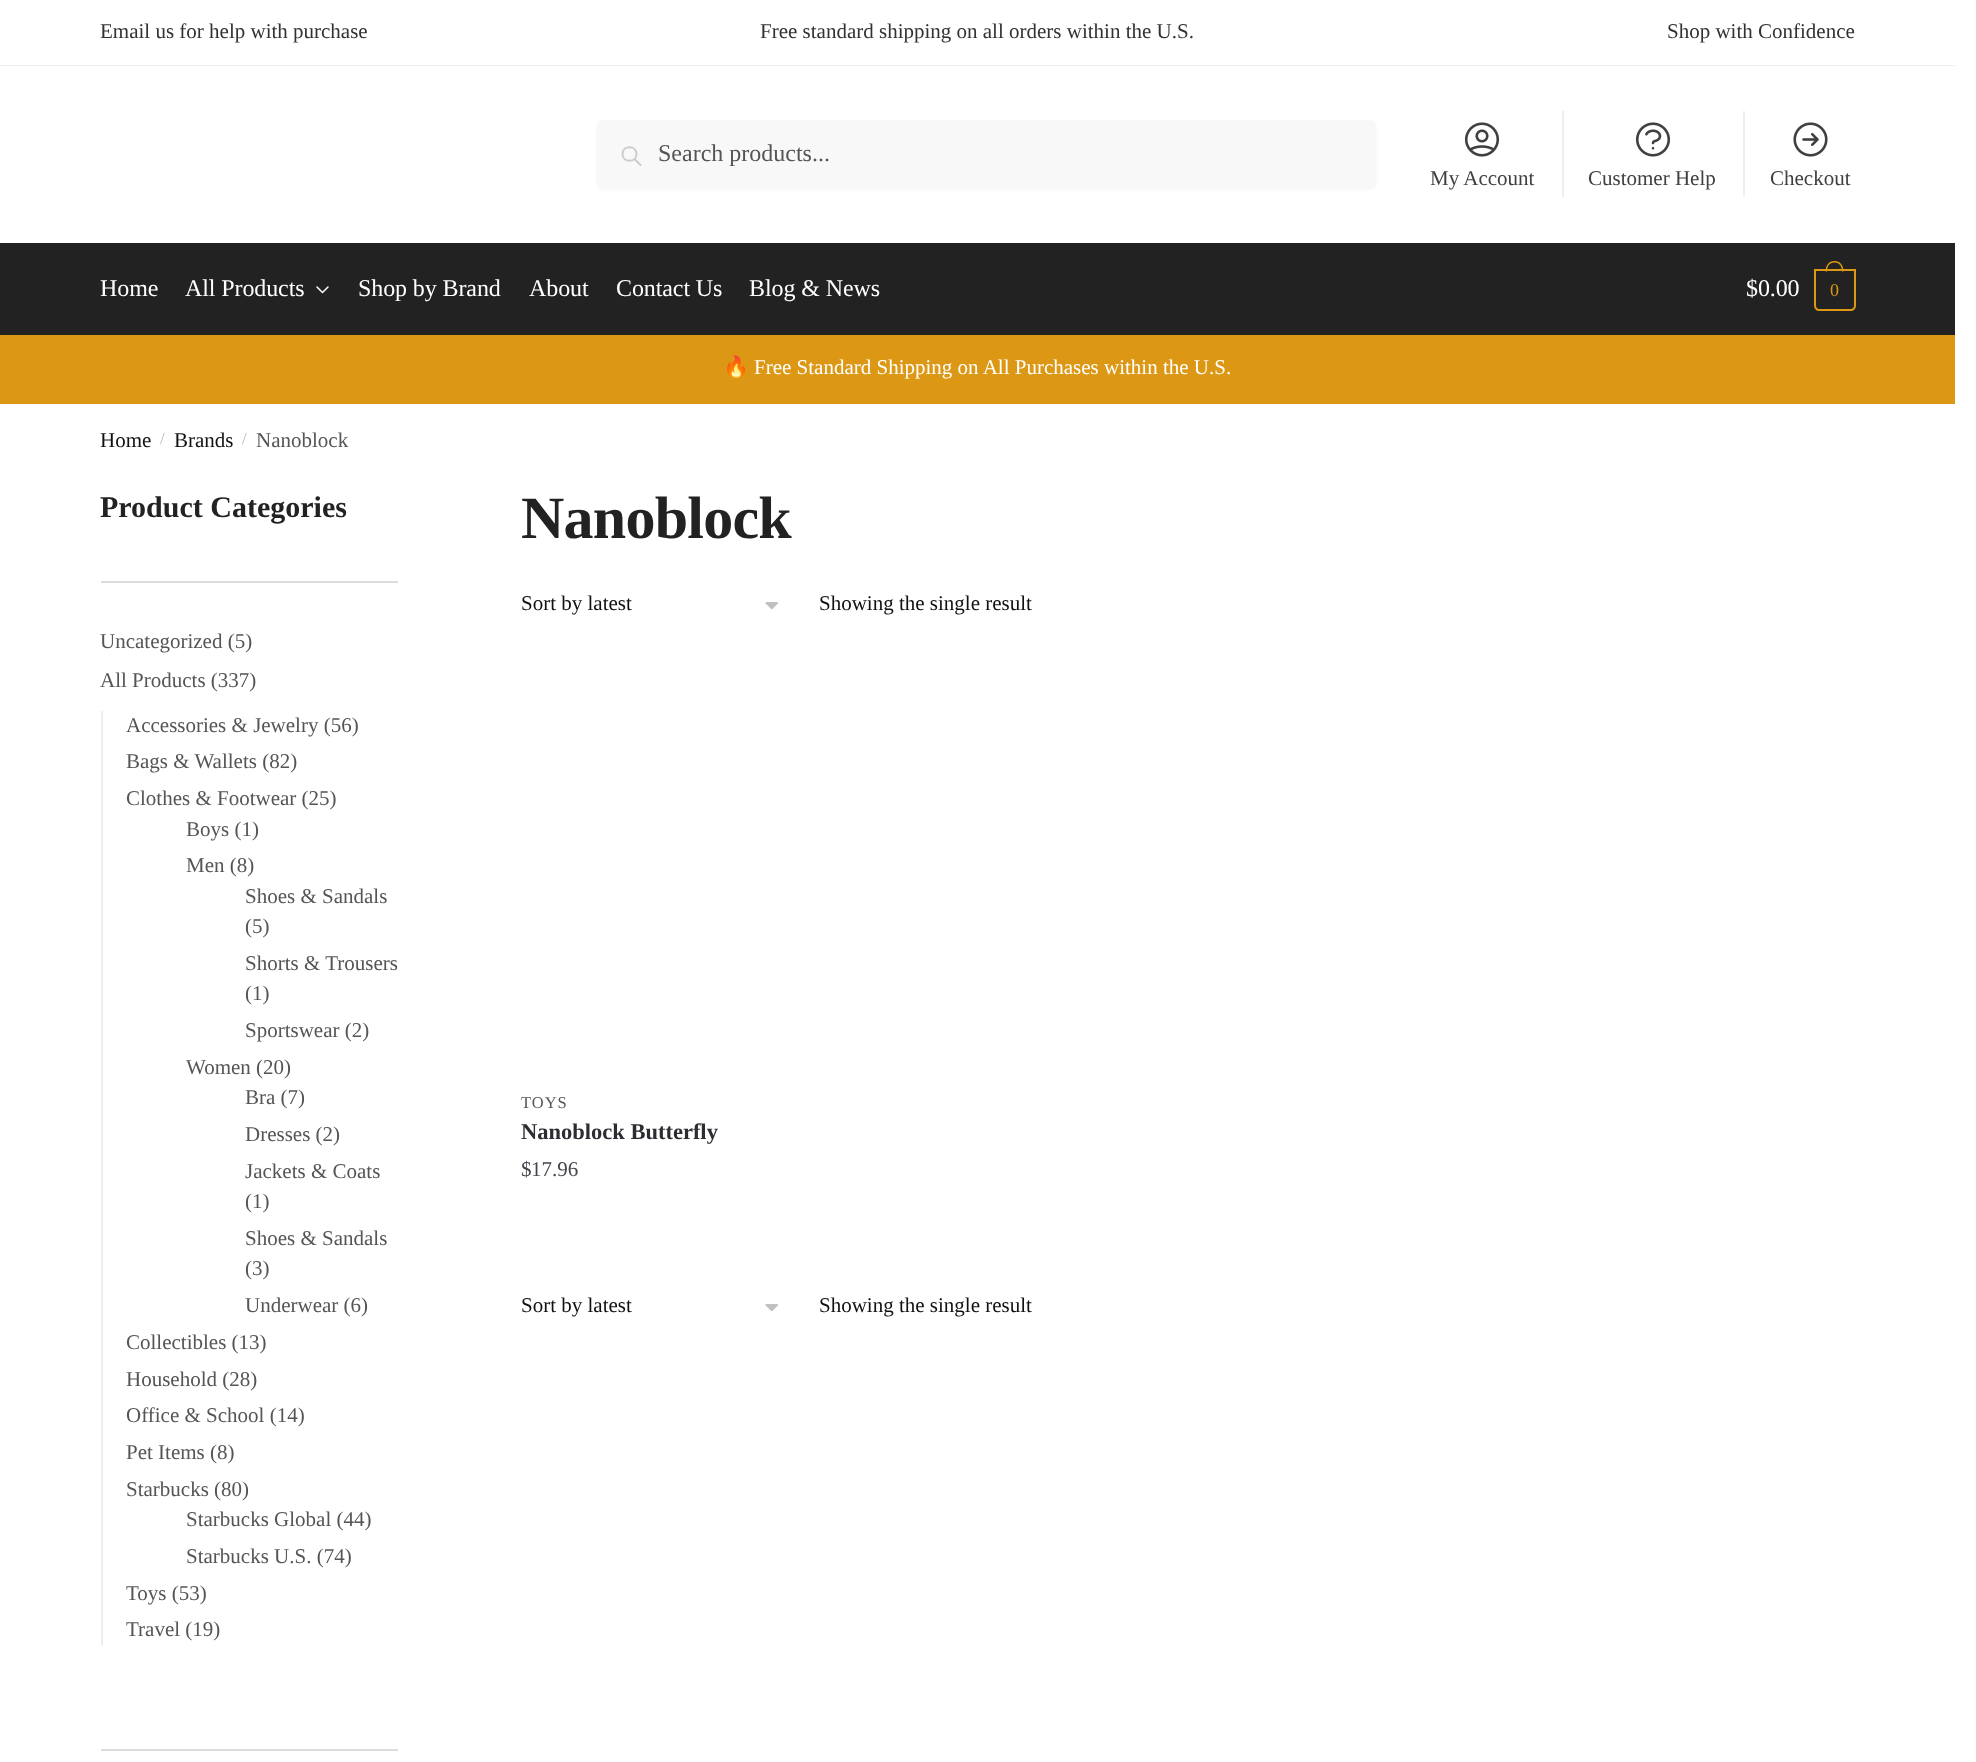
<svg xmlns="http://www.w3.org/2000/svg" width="1976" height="1762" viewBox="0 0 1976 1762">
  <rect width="100%" height="100%" fill="#fff"/>
  <path d="M0 65h1955v1H0z" fill="#eee"/>
  <rect x="597" y="122" width="779" height="67" rx="6" fill="#0000000d" filter="blur(1.5px)"/>
  <rect x="597" y="120" width="779" height="68" rx="6" fill="#f8f8f8"/>
  <path d="M640.5 165L634.5 159M636.5 154C636.5 163 622.5 163 622.5 154C622.5 145 636.5 145 636.5 154Z" fill="none" stroke="#ccc" stroke-width="2" stroke-linecap="round" stroke-linejoin="round"/>
  <image x="1464" y="122" width="36" height="35" href="img/1.png"/>
  <path d="M1562 111h2v86H1562z" fill="#eee"/>
  <image x="1635" y="122" width="36" height="35" href="img/2.png"/>
  <path d="M1743 111h2v86H1743z" fill="#eee"/>
  <image x="1793" y="122" width="35" height="35" href="img/3.png"/>
  <path d="M0 243h1955v92H0z" fill="#222"/>
  <path d="M328 287L322.5 292.5L317 287" fill="none" stroke="#fff" stroke-width="1.5" stroke-linecap="round" stroke-linejoin="round"/>
  <path d="M1815 270H1855V306C1855 308 1853 310 1851 310H1819C1817 310 1815 308 1815 306Z" fill="none" stroke="#dc9814" stroke-width="2"/>
  <path d="M1834.5 261C1840.5 261 1843.5 266 1843.5 271.5H1825.5C1825.5 266 1828.5 261 1834.5 261ZM1834.5 262.5C1840 262.5 1842 267 1842 271.5H1827C1827 267 1829 262.5 1834.5 262.5Z" fill="#dc9814" fill-rule="evenodd"/>
  <path d="M0 335h1955v69H0z" fill="#dc9814"/>
  <path d="M101 581h297v2H101z" fill="#ddd"/>
  <path d="M101 1749h297v2H101z" fill="#ddd"/>
  <path d="M101 711h2v935H101z" fill="#eee"/>
  <image x="765" y="602" width="14" height="8" href="img/4.png"/>
  <image x="765" y="1304" width="14" height="8" href="img/4.png"/>
  <g font-family="Liberation Serif" font-size="21" fill="#323232">
    <text x="100" y="38">Email us for help with purchase</text>
    <text x="760" y="38">Free standard shipping on all orders within the U.S.</text>
    <text x="1667" y="38">Shop with Confidence</text>
  </g>
  <text x="658" y="161" font-family="Liberation Serif" font-size="24" fill="#555">Search products...</text>
  <g font-family="Liberation Serif" font-size="21" fill="#404040">
    <text x="1430" y="185">My Account</text>
    <text x="1588" y="185">Customer Help</text>
    <text x="1770" y="185">Checkout</text>
  </g>
  <g font-family="Liberation Serif" font-size="24" letter-spacing="-0.1" fill="#fff">
    <text x="100" y="296">Home</text>
    <text x="185" y="296">All Products</text>
    <text x="358" y="296">Shop by Brand</text>
    <text x="529" y="296">About</text>
    <text x="616" y="296">Contact Us</text>
    <text x="749" y="296">Blog &amp; News</text>
    <text x="1746" y="296">$0.00</text>
  </g>
  <text x="1830" y="296" font-family="Liberation Serif" font-size="18" letter-spacing="-1" fill="#dc9814">0</text>
  <text x="723" y="374" font-family="Noto Color Emoji" font-size="21" fill="#fff">🔥</text>
  <text x="754" y="374" font-family="Liberation Serif" font-size="21" fill="#fff">Free Standard Shipping on All Purchases within the U.S.</text>
  <text x="100" y="447" font-family="Liberation Serif" font-size="21" fill="#111">Home</text>
  <text x="160" y="444" font-family="Liberation Serif" font-size="17" fill="#bbb">/</text>
  <text x="174" y="447" font-family="Liberation Serif" font-size="21" fill="#111">Brands</text>
  <text x="242" y="444" font-family="Liberation Serif" font-size="17" fill="#bbb">/</text>
  <text x="256" y="447" font-family="Liberation Serif" font-size="21" fill="#555">Nanoblock</text>
  <text x="100" y="517" font-family="Liberation Serif" font-size="30" font-weight="bold" fill="#222">Product Categories</text>
  <g font-family="Liberation Serif" font-size="21" fill="#555">
    <text x="100" y="648">Uncategorized (5)</text>
    <text x="100" y="687">All Products (337)</text>
    <text x="126" y="732">Accessories &amp; Jewelry (56)</text>
    <text x="126" y="768">Bags &amp; Wallets (82)</text>
    <text x="126" y="805">Clothes &amp; Footwear (25)</text>
    <text x="186" y="836">Boys (1)</text>
    <text x="186" y="872">Men (8)</text>
    <text x="245" y="903">Shoes &amp; Sandals</text>
    <text x="245" y="933">(5)</text>
    <text x="245" y="970">Shorts &amp; Trousers</text>
    <text x="245" y="1000">(1)</text>
    <text x="245" y="1037">Sportswear (2)</text>
    <text x="186" y="1074">Women (20)</text>
    <text x="245" y="1104">Bra (7)</text>
    <text x="245" y="1141">Dresses (2)</text>
    <text x="245" y="1178">Jackets &amp; Coats</text>
    <text x="245" y="1208">(1)</text>
    <text x="245" y="1245">Shoes &amp; Sandals</text>
    <text x="245" y="1275">(3)</text>
    <text x="245" y="1312">Underwear (6)</text>
    <text x="126" y="1349">Collectibles (13)</text>
    <text x="126" y="1386">Household (28)</text>
    <text x="126" y="1422">Office &amp; School (14)</text>
    <text x="126" y="1459">Pet Items (8)</text>
    <text x="126" y="1496">Starbucks (80)</text>
    <text x="186" y="1526">Starbucks Global (44)</text>
    <text x="186" y="1563">Starbucks U.S. (74)</text>
    <text x="126" y="1600">Toys (53)</text>
    <text x="126" y="1636">Travel (19)</text>
  </g>
  <text x="521" y="538" font-family="Liberation Serif" font-size="60" font-weight="bold" letter-spacing="-0.75" fill="#222">Nanoblock</text>
  <g font-family="Liberation Serif" font-size="21" fill="#111">
    <text x="521" y="610">Sort by latest</text>
    <text x="819" y="610">Showing the single result</text>
  </g>
  <text x="521" y="1108" font-family="Liberation Serif" font-size="16.5" letter-spacing="1" fill="#555">TOYS</text>
  <text x="521" y="1139" font-family="Liberation Serif" font-size="22.5" font-weight="bold" fill="#2c2d33">Nanoblock Butterfly</text>
  <g font-family="Liberation Serif" font-size="21" fill="#43454b">
    <text x="521" y="1176">$</text>
    <text x="531" y="1176">17.96</text>
  </g>
  <g font-family="Liberation Serif" font-size="21" fill="#111">
    <text x="521" y="1312">Sort by latest</text>
    <text x="819" y="1312">Showing the single result</text>
  </g>
</svg>
